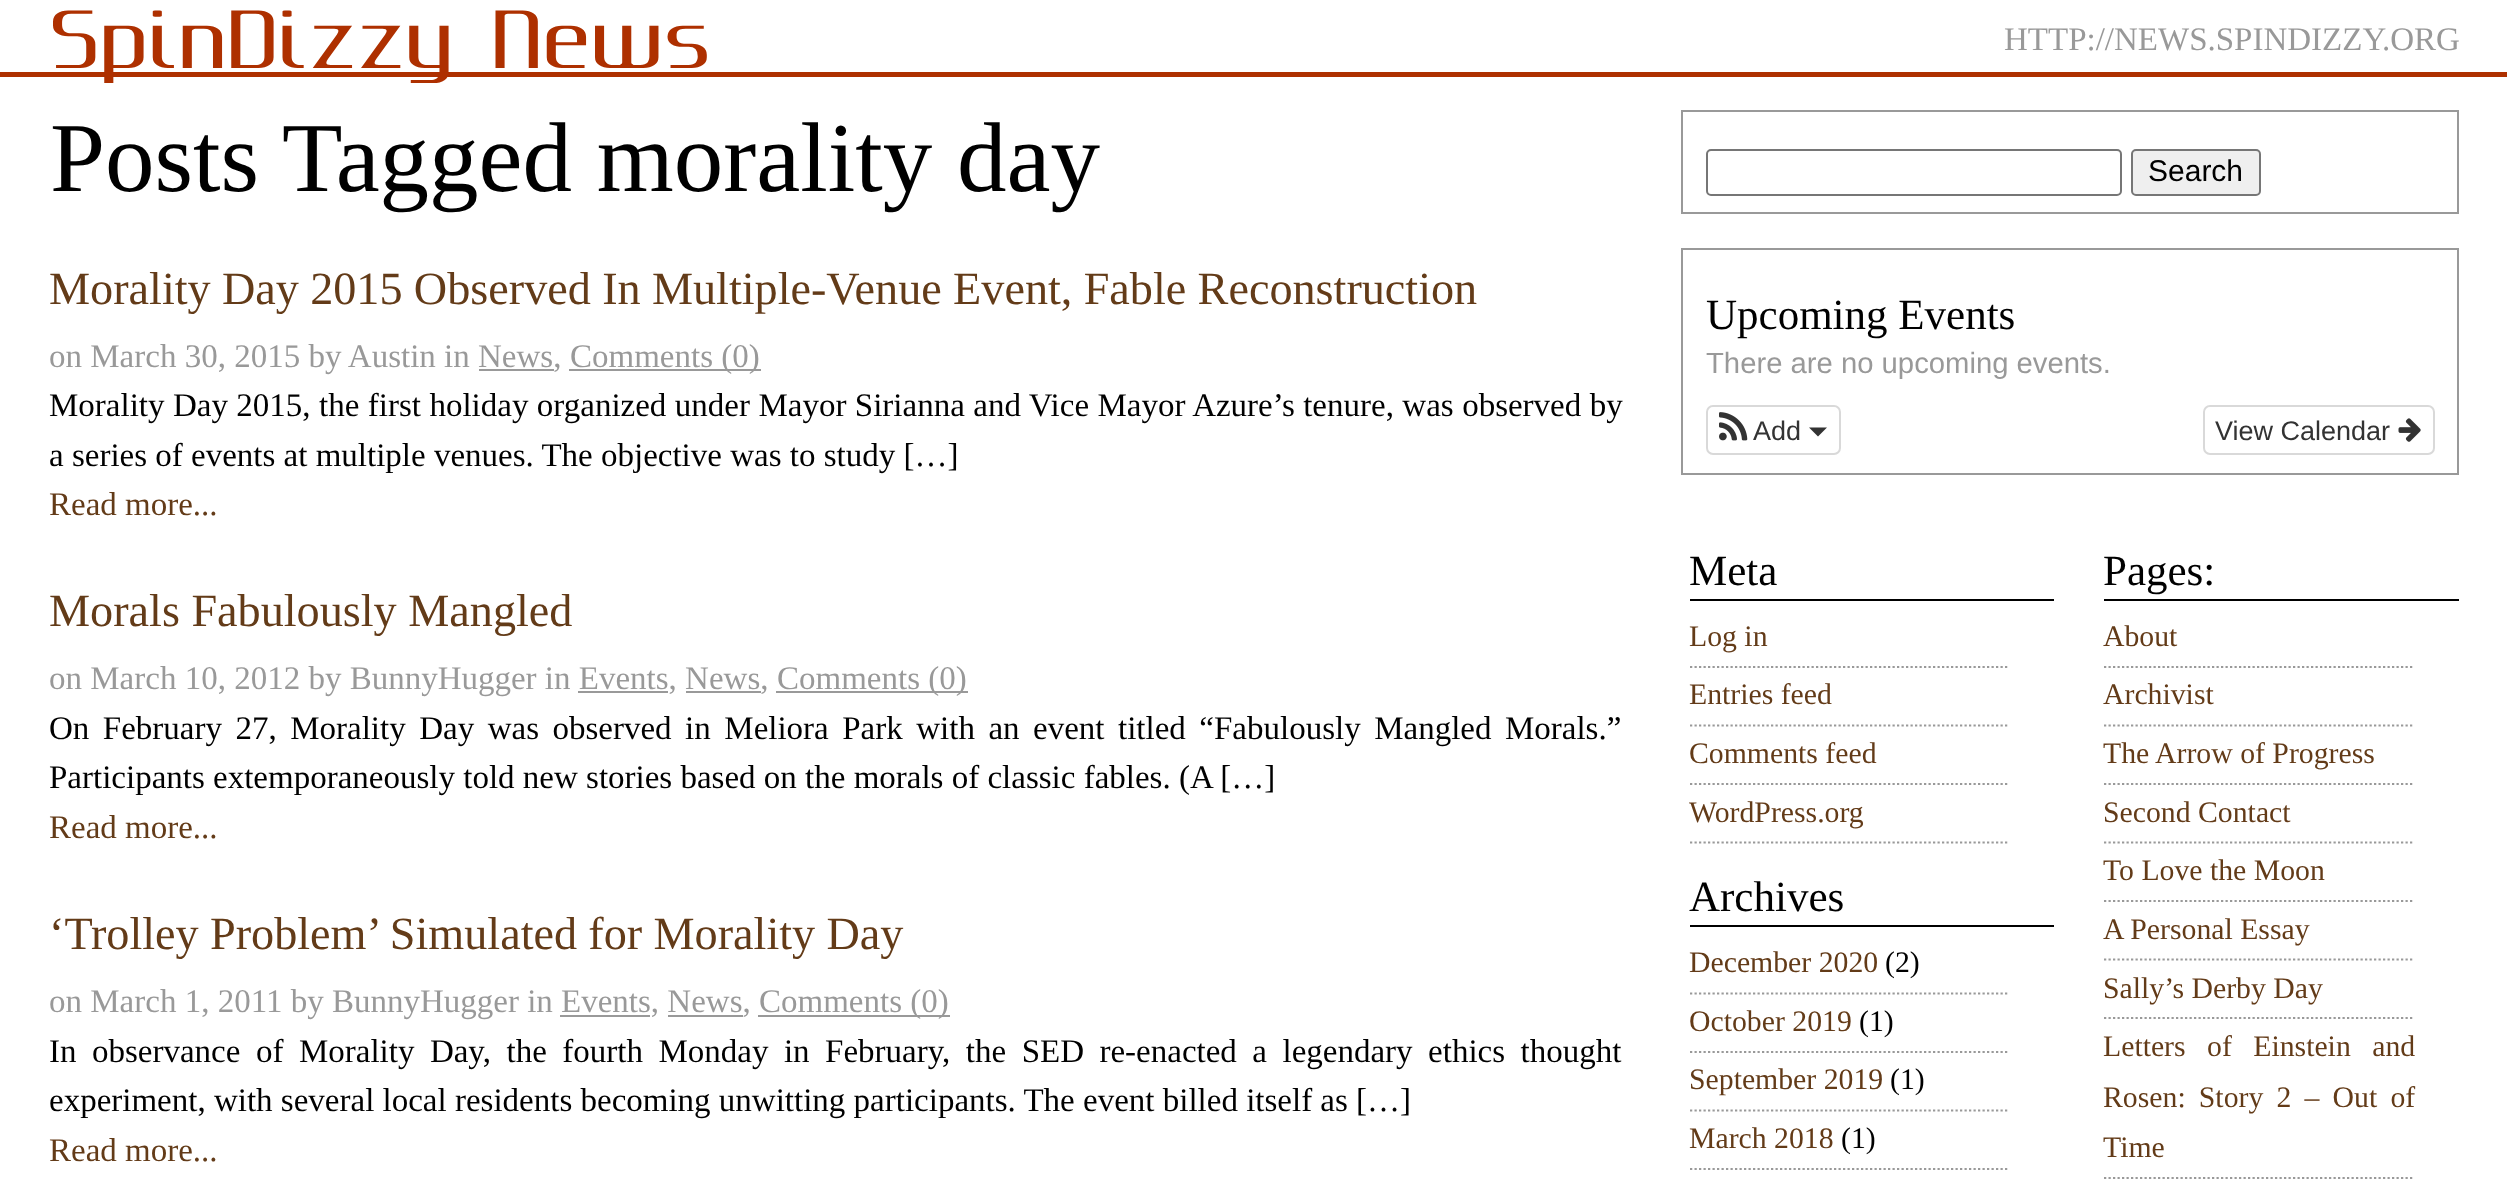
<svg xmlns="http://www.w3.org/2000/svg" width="2507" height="1200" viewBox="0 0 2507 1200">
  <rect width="100%" height="100%" fill="#fff"/>
  <path d="M0 72h2507v5H0z" fill="#ae3000"/>
  <path d="M569 369h192v2H569z" fill="#999"/>
  <path d="M479 369h75v2H479z" fill="#999"/>
  <path d="M776 691h192v2H776z" fill="#999"/>
  <path d="M578 691h90v2H578z" fill="#999"/>
  <path d="M686 691h75v2H686z" fill="#999"/>
  <path d="M758 1015h192v2H758z" fill="#999"/>
  <path d="M560 1015h90v2H560z" fill="#999"/>
  <path d="M668 1015h75v2H668z" fill="#999"/>
  <path d="M1682 111h776v102H1682z" fill="none" stroke="#999" stroke-width="2"/>
  <rect x="1707" y="150" width="414" height="45" rx="4" fill="none" stroke="#767676" stroke-width="2"/>
  <rect x="2132" y="150" width="128" height="45" rx="4" fill="#efefef" stroke="#767676" stroke-width="2"/>
  <path d="M1682 249h776v225H1682z" fill="none" stroke="#999" stroke-width="2"/>
  <rect x="1707" y="406" width="133" height="48" rx="6" fill="none" stroke="#d9d9d9" stroke-width="2"/>
  <image x="1719" y="412" width="29" height="29" href="img/1.png"/>
  <path d="M1809 427.5H1827L1818 436.5Z" fill="#333"/>
  <rect x="2204" y="406" width="230" height="48" rx="6" fill="none" stroke="#d9d9d9" stroke-width="2"/>
  <image x="2398" y="418" width="23" height="24" href="img/2.png"/>
  <path d="M1690 599h364v2H1690z" fill="#000"/>
  <path d="M1690 667H2009" fill="none" stroke="#999" stroke-width="2.2" stroke-dasharray="2.25 2.25"/>
  <path d="M1690 725.5H2009" fill="none" stroke="#999" stroke-width="2.2" stroke-dasharray="2.25 2.25"/>
  <path d="M1690 784H2009" fill="none" stroke="#999" stroke-width="2.2" stroke-dasharray="2.25 2.25"/>
  <path d="M1690 842.5H2009" fill="none" stroke="#999" stroke-width="2.2" stroke-dasharray="2.25 2.25"/>
  <path d="M1690 925h364v2H1690z" fill="#000"/>
  <path d="M1690 993.5H2009" fill="none" stroke="#999" stroke-width="2.2" stroke-dasharray="2.25 2.25"/>
  <path d="M1690 1052H2009" fill="none" stroke="#999" stroke-width="2.2" stroke-dasharray="2.25 2.25"/>
  <path d="M1690 1110.5H2009" fill="none" stroke="#999" stroke-width="2.2" stroke-dasharray="2.25 2.25"/>
  <path d="M1690 1169H2009" fill="none" stroke="#999" stroke-width="2.2" stroke-dasharray="2.25 2.25"/>
  <path d="M2104 599h355v2H2104z" fill="#000"/>
  <path d="M2104 667H2414" fill="none" stroke="#999" stroke-width="2.2" stroke-dasharray="2.25 2.25"/>
  <path d="M2104 725.5H2414" fill="none" stroke="#999" stroke-width="2.2" stroke-dasharray="2.25 2.25"/>
  <path d="M2104 784H2414" fill="none" stroke="#999" stroke-width="2.2" stroke-dasharray="2.25 2.25"/>
  <path d="M2104 842.5H2414" fill="none" stroke="#999" stroke-width="2.2" stroke-dasharray="2.25 2.25"/>
  <path d="M2104 901H2414" fill="none" stroke="#999" stroke-width="2.2" stroke-dasharray="2.25 2.25"/>
  <path d="M2104 959.5H2414" fill="none" stroke="#999" stroke-width="2.2" stroke-dasharray="2.25 2.25"/>
  <path d="M2104 1018H2414" fill="none" stroke="#999" stroke-width="2.2" stroke-dasharray="2.25 2.25"/>
  <path d="M2104 1178H2414" fill="none" stroke="#999" stroke-width="2.2" stroke-dasharray="2.25 2.25"/>
  <text x="50" y="68" font-family="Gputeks" font-size="72.5" font-weight="bold" fill="#ae3000">SpinDizzy News</text>
  <text x="2004" y="50" font-family="Liberation Serif" font-size="33" fill="#999">HTTP://NEWS.SPINDIZZY.ORG</text>
  <text x="50" y="191" font-family="Liberation Serif" font-size="99" fill="#000">Posts Tagged morality day</text>
  <text x="49" y="304" word-spacing="-0.25" font-family="Liberation Serif" font-size="46.2" fill="#633b18">Morality Day 2015 Observed In Multiple-Venue Event, Fable Reconstruction</text>
  <g font-family="Liberation Serif" font-size="33" fill="#999">
    <text x="49" y="367">on March 30, 2015 by Austin in News,</text>
    <text x="570" y="367">Comments (0)</text>
  </g>
  <g font-family="Liberation Serif" font-size="33" fill="#000">
    <text x="49" y="416" word-spacing="0.2">Morality Day 2015, the first holiday organized under Mayor Sirianna and Vice Mayor Azure’s tenure, was observed by</text>
    <text x="49" y="466">a series of events at multiple venues. The objective was to study […]</text>
  </g>
  <text x="49" y="515" font-family="Liberation Serif" font-size="33" fill="#633b18">Read more...</text>
  <text x="49" y="626" font-family="Liberation Serif" font-size="46.2" fill="#633b18">Morals Fabulously Mangled</text>
  <g font-family="Liberation Serif" font-size="33" fill="#999">
    <text x="49" y="689">on March 10, 2012 by BunnyHugger in Events, News,</text>
    <text x="777" y="689">Comments (0)</text>
  </g>
  <g font-family="Liberation Serif" font-size="33" fill="#000">
    <text x="49" y="739" word-spacing="5.25">On February 27, Morality Day was observed in Meliora Park with an event titled “Fabulously Mangled Morals.”</text>
    <text x="49" y="788">Participants extemporaneously told new stories based on the morals of classic fables. (A […]</text>
  </g>
  <text x="49" y="838" font-family="Liberation Serif" font-size="33" fill="#633b18">Read more...</text>
  <text x="49" y="949" word-spacing="-0.25" font-family="Liberation Serif" font-size="46.2" fill="#633b18">‘Trolley Problem’ Simulated for Morality Day</text>
  <g font-family="Liberation Serif" font-size="33" fill="#999">
    <text x="49" y="1012">on March 1, 2011 by BunnyHugger in Events, News,</text>
    <text x="759" y="1012">Comments (0)</text>
  </g>
  <g font-family="Liberation Serif" font-size="33" fill="#000">
    <text x="49" y="1062" word-spacing="7.25">In observance of Morality Day, the fourth Monday in February, the SED re-enacted a legendary ethics thought</text>
    <text x="49" y="1111">experiment, with several local residents becoming unwitting participants. The event billed itself as […]</text>
  </g>
  <text x="49" y="1161" font-family="Liberation Serif" font-size="33" fill="#633b18">Read more...</text>
  <text x="2148" y="181" font-family="Liberation Sans" font-size="30" fill="#000">Search</text>
  <text x="1706" y="329" font-family="Liberation Serif" font-size="43" fill="#000">Upcoming Events</text>
  <text x="1706" y="373" font-family="Liberation Sans" font-size="29.25" fill="#999">There are no upcoming events.</text>
  <g font-family="Liberation Sans" font-size="27" fill="#333">
    <text x="1753" y="440">Add</text>
    <text x="2215" y="440">View Calendar</text>
  </g>
  <text x="1689" y="585" font-family="Liberation Serif" font-size="43" fill="#000">Meta</text>
  <g font-family="Liberation Serif" font-size="29.75" fill="#633b18">
    <text x="1689" y="646">Log in</text>
    <text x="1689" y="704">Entries feed</text>
    <text x="1689" y="763">Comments feed</text>
    <text x="1689" y="822">WordPress.org</text>
  </g>
  <text x="1689" y="911" font-family="Liberation Serif" font-size="43" fill="#000">Archives</text>
  <text x="1689" y="972" font-family="Liberation Serif" font-size="29.75" fill="#633b18">December 2020</text>
  <text x="1885" y="972" font-family="Liberation Serif" font-size="29.75" fill="#000">(2)</text>
  <text x="1689" y="1031" font-family="Liberation Serif" font-size="29.75" fill="#633b18">October 2019</text>
  <text x="1859" y="1031" font-family="Liberation Serif" font-size="29.75" fill="#000">(1)</text>
  <text x="1689" y="1089" font-family="Liberation Serif" font-size="29.75" fill="#633b18">September 2019</text>
  <text x="1890" y="1089" font-family="Liberation Serif" font-size="29.75" fill="#000">(1)</text>
  <text x="1689" y="1148" font-family="Liberation Serif" font-size="29.75" fill="#633b18">March 2018</text>
  <text x="1841" y="1148" font-family="Liberation Serif" font-size="29.75" fill="#000">(1)</text>
  <text x="2103" y="585" font-family="Liberation Serif" font-size="43" fill="#000">Pages:</text>
  <g font-family="Liberation Serif" font-size="29.75" fill="#633b18">
    <text x="2103" y="646">About</text>
    <text x="2103" y="704">Archivist</text>
    <text x="2103" y="763">The Arrow of Progress</text>
    <text x="2103" y="822">Second Contact</text>
    <text x="2103" y="880">To Love the Moon</text>
    <text x="2103" y="939">A Personal Essay</text>
    <text x="2103" y="998">Sally’s Derby Day</text>
    <text x="2103" y="1056" word-spacing="14">Letters of Einstein and</text>
    <text x="2103" y="1107" word-spacing="5.75">Rosen: Story 2 – Out of</text>
    <text x="2103" y="1157">Time</text>
  </g>
</svg>
